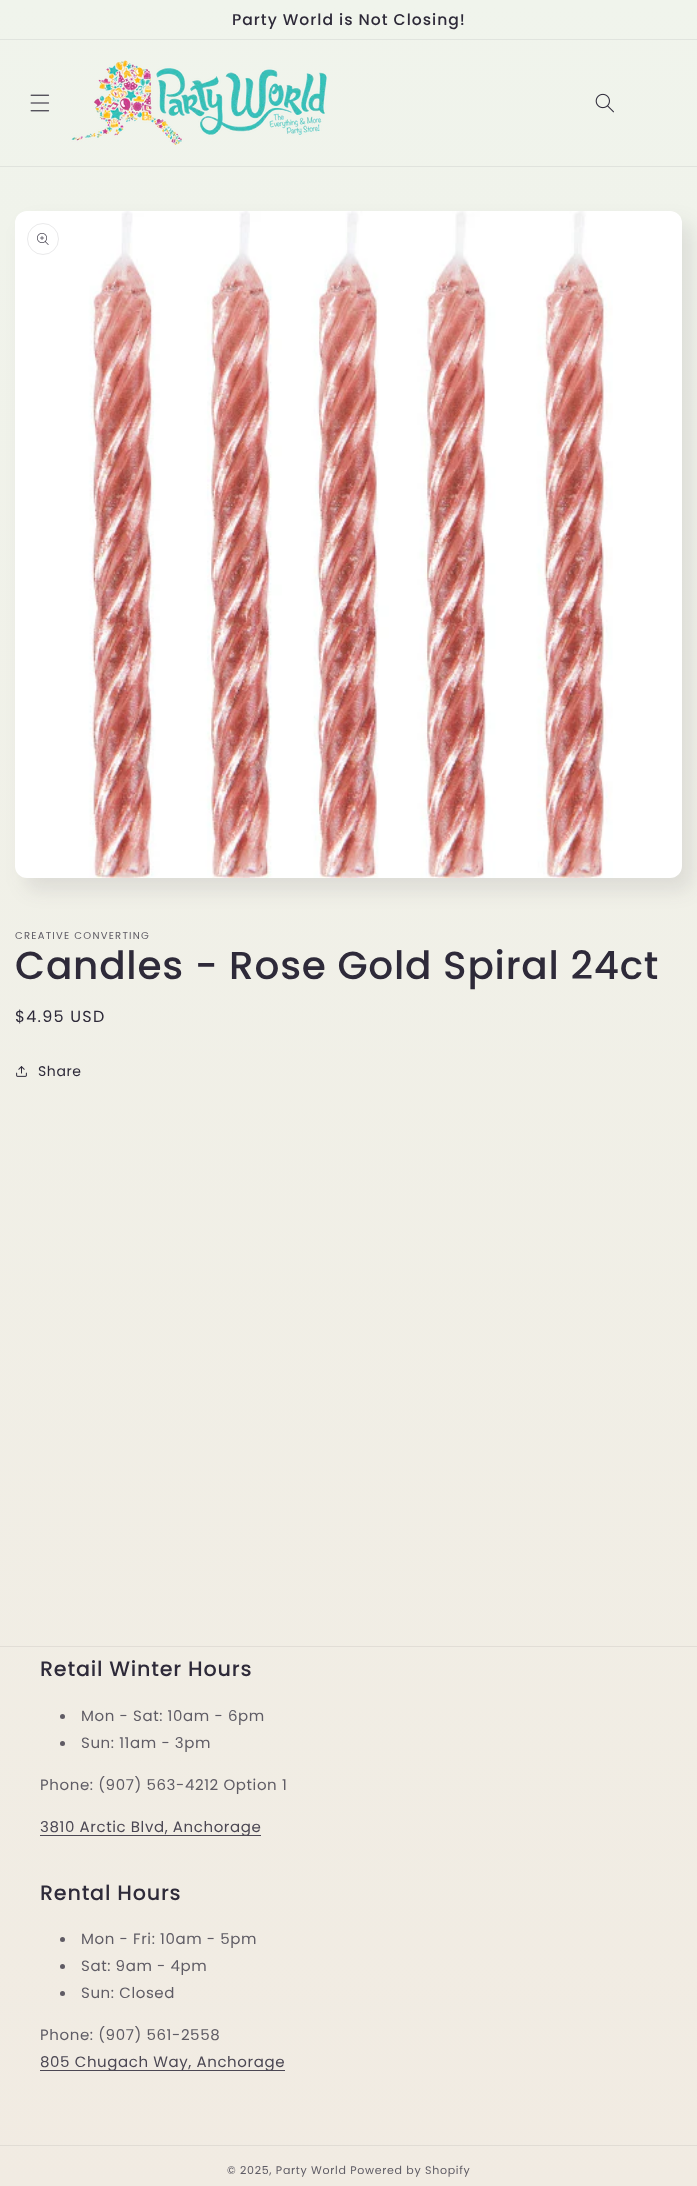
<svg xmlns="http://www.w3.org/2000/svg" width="697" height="2186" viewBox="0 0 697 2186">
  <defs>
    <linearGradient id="g1" gradientUnits="userSpaceOnUse" x1="348" y1="0" x2="349" y2="2186"><stop offset="0" stop-color="#f0f4ec"/><stop offset="1" stop-color="#f1ebe2"/></linearGradient>
  </defs>
  <rect width="100%" height="100%" fill="#fff"/>
  <path d="M0 0h697v2186H0z" fill="url(#g1)"/>
  <path d="M0 39h697v1H0z" fill="#e0e4de"/>
  <path d="M0 166h697v1H0z" fill="#e0e3dd"/>
  <image x="30" y="94" width="20" height="18" href="img/1.png"/>
  <image x="71" y="60" width="256" height="85" href="img/2.png"/>
  <image x="595" y="93" width="19" height="20" href="img/3.png"/>
  <rect x="25" y="223" width="667" height="667" rx="12" fill="#2e2a391a" filter="blur(10px)"/>
  <image x="15" y="211" width="667" height="667" href="img/4.png"/>
  <circle cx="43" cy="239" r="15.5" fill="none" stroke="#eaeaeb"/>
  <image x="37" y="233" width="12" height="12" href="img/5.png"/>
  <image x="16" y="1066" width="11" height="11" href="img/6.png"/>
  <path d="M0 1646h697v1H0z" fill="#e1ddd6"/>
  <circle cx="62.5" cy="1716.5" r="2.5" fill="#5f5b64"/>
  <circle cx="62.5" cy="1743.5" r="2.5" fill="#5f5b64"/>
  <path d="M40 1835h221v1H40z" fill="#4b4753"/>
  <circle cx="62.5" cy="1939.5" r="2.5" fill="#5f5b64"/>
  <circle cx="62.5" cy="1966.5" r="2.5" fill="#5f5b64"/>
  <circle cx="62.5" cy="1993.5" r="2.5" fill="#5f5b64"/>
  <path d="M40 2070h245v1H40z" fill="#4b4753"/>
  <path d="M0 2145h697v1H0z" fill="#e1dcd4"/>
  <text x="232" y="25" font-family="Poppins" font-size="15.6" font-weight="500" letter-spacing="1" fill="#2e2a39">Party World is Not Closing!</text>
  <text x="15" y="939" font-family="Poppins" font-size="10" letter-spacing="1.25" fill="#5f5c65">CREATIVE CONVERTING</text>
  <text x="15" y="979" font-family="Poppins" font-size="39" font-weight="500" letter-spacing="0.75" fill="#2e2a39">Candles - Rose Gold Spiral 24ct</text>
  <text x="15" y="1022" font-family="Poppins" font-size="16" letter-spacing="1.25" fill="#2e2a39">$4.95 USD</text>
  <text x="38" y="1076" font-family="Poppins" font-size="14" letter-spacing="0.6" fill="#2e2a39">Share</text>
  <text x="40" y="1676" font-family="Poppins" font-size="20.75" font-weight="500" letter-spacing="0.75" fill="#2e2a39">Retail Winter Hours</text>
  <g font-family="Poppins" font-size="15" letter-spacing="0.6" fill="#5f5c65">
    <text x="81" y="1721">Mon - Sat: 10am - 6pm</text>
    <text x="81" y="1748">Sun: 11am - 3pm</text>
    <text x="40" y="1790">Phone: (907) 563-4212 Option 1</text>
  </g>
  <text x="40" y="1832" font-family="Poppins" font-size="15" letter-spacing="0.6" fill="#4b4753">3810 Arctic Blvd, Anchorage</text>
  <text x="40" y="1900" font-family="Poppins" font-size="20.75" font-weight="500" letter-spacing="0.75" fill="#2e2a39">Rental Hours</text>
  <g font-family="Poppins" font-size="15" letter-spacing="0.6" fill="#5f5c65">
    <text x="81" y="1944">Mon - Fri: 10am - 5pm</text>
    <text x="81" y="1971">Sat: 9am - 4pm</text>
    <text x="81" y="1998">Sun: Closed</text>
    <text x="40" y="2040">Phone: (907) 561-2558</text>
  </g>
  <text x="40" y="2067" font-family="Poppins" font-size="15" letter-spacing="0.6" fill="#4b4753">805 Chugach Way, Anchorage</text>
  <text x="227" y="2174" font-family="Poppins" font-size="11" letter-spacing="0.7" fill="#5f5c65">© 2025, Party World Powered by Shopify</text>
</svg>
